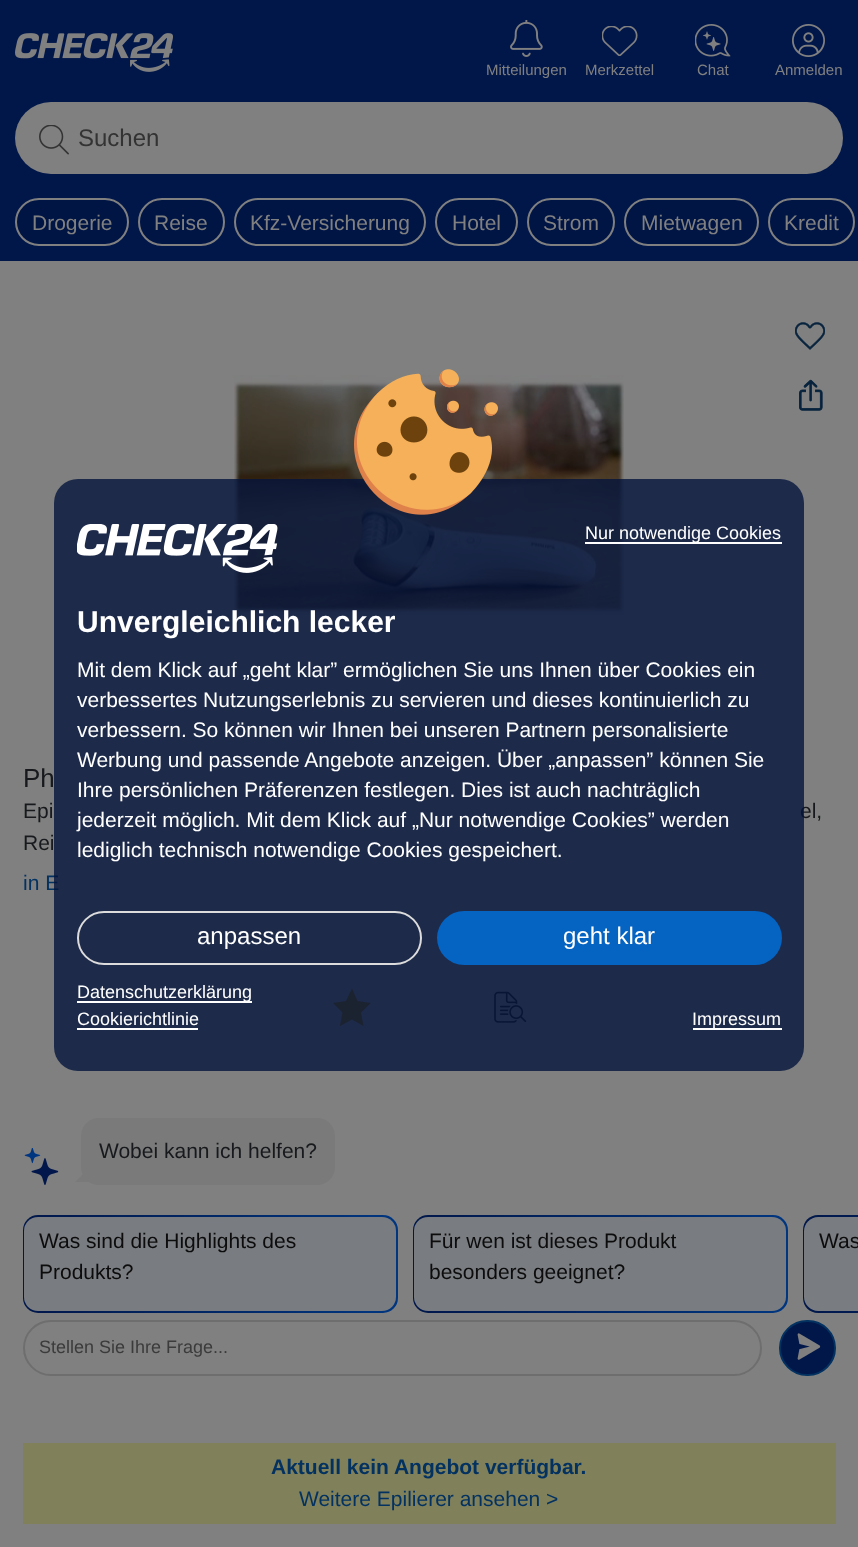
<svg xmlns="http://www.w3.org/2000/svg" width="858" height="1547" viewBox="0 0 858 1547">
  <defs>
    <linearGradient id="g1" gradientUnits="userSpaceOnUse" x1="23" y1="1264" x2="398" y2="1264"><stop offset="0" stop-color="#01174a"/><stop offset="1" stop-color="#003680"/></linearGradient>
    <linearGradient id="g2" gradientUnits="userSpaceOnUse" x1="413" y1="1264" x2="788" y2="1264"><stop offset="0" stop-color="#01174a"/><stop offset="1" stop-color="#003680"/></linearGradient>
    <linearGradient id="g3" gradientUnits="userSpaceOnUse" x1="803" y1="1264" x2="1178" y2="1264"><stop offset="0" stop-color="#01174a"/><stop offset="1" stop-color="#003680"/></linearGradient>
  </defs>
  <rect width="100%" height="100%" fill="#808080"/>
  <path d="M0 0h858v261H0z" fill="#01174a"/>
  <image x="15" y="33" width="158" height="39" href="img/1.png"/>
  <image x="510" y="20" width="33" height="37" href="img/2.png"/>
  <image x="602" y="26" width="36" height="30" href="img/3.png"/>
  <image x="695" y="24" width="36" height="33" href="img/4.png"/>
  <image x="792" y="24" width="33" height="33" href="img/5.png"/>
  <rect x="15" y="102" width="828" height="72" rx="36" fill="#808080"/>
  <image x="39" y="125" width="30" height="30" href="img/6.png"/>
  <rect x="16" y="199" width="112" height="46" rx="23" fill="#011545" stroke="#808080" stroke-width="2"/>
  <rect x="139" y="199" width="85" height="46" rx="23" fill="#011545" stroke="#808080" stroke-width="2"/>
  <rect x="235" y="199" width="190" height="46" rx="23" fill="#011545" stroke="#808080" stroke-width="2"/>
  <rect x="436" y="199" width="81" height="46" rx="23" fill="#011545" stroke="#808080" stroke-width="2"/>
  <rect x="528" y="199" width="86" height="46" rx="23" fill="#011545" stroke="#808080" stroke-width="2"/>
  <rect x="625" y="199" width="133" height="46" rx="23" fill="#011545" stroke="#808080" stroke-width="2"/>
  <rect x="769" y="199" width="85" height="46" rx="23" fill="#011545" stroke="#808080" stroke-width="2"/>
  <image x="795" y="322" width="30" height="28" href="img/7.png"/>
  <image x="799" y="379" width="24" height="32" href="img/8.png"/>
  <image x="234" y="375" width="390" height="240" href="img/9.png"/>
  <path d="M352 988.5L346 1001L333 1003L342.5 1012.5L340 1026L352 1019.5L363.5 1026L361 1012.5L370.5 1003L357.5 1001Z" fill="#7b5c00"/>
  <image x="494" y="991" width="33" height="32" href="img/10.png"/>
  <image x="24" y="1148" width="35" height="37" href="img/11.png"/>
  <rect x="81" y="1118" width="254" height="67" rx="18" fill="#7a7a7a"/>
  <path d="M90 1182H75L82.5 1174.5Z" fill="#7a7a7a"/>
  <rect x="23" y="1215" width="375" height="98" rx="15" fill="url(#g1)"/>
  <rect x="24" y="1217" width="372" height="94" rx="14" fill="#797c80"/>
  <rect x="413" y="1215" width="375" height="98" rx="15" fill="url(#g2)"/>
  <rect x="414" y="1217" width="372" height="94" rx="14" fill="#797c80"/>
  <path d="M818 1215H858V1313H818C809.5 1313 803 1306.5 803 1298V1230C803 1221.5 809.5 1215 818 1215Z" fill="url(#g3)"/>
  <path d="M818 1217H858V1311H818C810.5 1311 804 1304.5 804 1297V1231C804 1223.5 810.5 1217 818 1217Z" fill="#797c80"/>
  <rect x="24" y="1321" width="737" height="54" rx="27" fill="none" stroke="#6e6e6e" stroke-width="2"/>
  <rect x="780" y="1321" width="55" height="54" rx="27" fill="#01174a" stroke="#033261" stroke-width="2"/>
  <image x="797" y="1333" width="24" height="27" href="img/12.png"/>
  <path d="M23 1443h813v81H23z" fill="#80805b"/>
  <g font-family="Liberation Sans" font-size="15" fill="#808080">
    <text x="486" y="75">Mitteilungen</text>
    <text x="585" y="75">Merkzettel</text>
    <text x="697" y="75">Chat</text>
    <text x="775" y="75">Anmelden</text>
  </g>
  <text x="78" y="146" font-family="Liberation Sans" font-size="24" fill="#333">Suchen</text>
  <g font-family="Liberation Sans" font-size="21" fill="#808080">
    <text x="32" y="230">Drogerie</text>
    <text x="154" y="230">Reise</text>
    <text x="250" y="230">Kfz-Versicherung</text>
    <text x="452" y="230">Hotel</text>
    <text x="543" y="230">Strom</text>
    <text x="641" y="230">Mietwagen</text>
    <text x="784" y="230">Kredit</text>
  </g>
  <text x="23" y="787" font-family="Liberation Sans" font-size="26" fill="#17191c">Ph</text>
  <g font-family="Liberation Sans" font-size="21" fill="#17191c">
    <text x="23" y="818">Epi</text>
    <text x="800" y="818">el,</text>
    <text x="23" y="850">Rei</text>
  </g>
  <text x="23" y="890" font-family="Liberation Sans" font-size="21" fill="#033261">in E</text>
  <text x="99" y="1158" font-family="Liberation Sans" font-size="21" fill="#17191c">Wobei kann ich helfen?</text>
  <g font-family="Liberation Sans" font-size="21" fill="#0c0c0c">
    <text x="39" y="1248">Was sind die Highlights des</text>
    <text x="39" y="1279">Produkts?</text>
    <text x="429" y="1248">Für wen ist dieses Produkt</text>
    <text x="429" y="1279">besonders geeignet?</text>
    <text x="819" y="1248">Was</text>
  </g>
  <text x="39" y="1353" font-family="Liberation Sans" font-size="18" fill="#3b3b3b">Stellen Sie Ihre Frage...</text>
  <text x="271" y="1474" font-family="Liberation Sans" font-size="21" font-weight="bold" fill="#033261">Aktuell kein Angebot verfügbar.</text>
  <text x="299" y="1506" font-family="Liberation Sans" font-size="21" fill="#033261">Weitere Epilierer ansehen &gt;</text>
  <rect x="54" y="479" width="750" height="592" rx="24" fill="#04143ccc"/>
  <image x="354" y="369" width="144" height="146" href="img/13.png"/>
  <image x="77" y="524" width="201" height="49" href="img/14.png"/>
  <path d="M585 542h197v2H585z" fill="#fff"/>
  <text x="585" y="539" font-family="Liberation Sans" font-size="18" fill="#fff">Nur notwendige Cookies</text>
  <text x="77" y="632" font-family="Liberation Sans" font-size="30" font-weight="bold" fill="#fff">Unvergleichlich lecker</text>
  <g font-family="Liberation Sans" font-size="21" fill="#fff">
    <text x="77" y="677">Mit dem Klick auf „geht klar” ermöglichen Sie uns Ihnen über Cookies ein</text>
    <text x="77" y="707">verbessertes Nutzungserlebnis zu servieren und dieses kontinuierlich zu</text>
    <text x="77" y="737">verbessern. So können wir Ihnen bei unseren Partnern personalisierte</text>
    <text x="77" y="767">Werbung und passende Angebote anzeigen. Über „anpassen” können Sie</text>
    <text x="77" y="797">Ihre persönlichen Präferenzen festlegen. Dies ist auch nachträglich</text>
    <text x="77" y="827">jederzeit möglich. Mit dem Klick auf „Nur notwendige Cookies” werden</text>
    <text x="77" y="857">lediglich technisch notwendige Cookies gespeichert.</text>
  </g>
  <rect x="78" y="912" width="343" height="52" rx="26" fill="none" stroke="#dcdcdc" stroke-width="2"/>
  <text x="197" y="944" font-family="Liberation Sans" font-size="24" fill="#fff">anpassen</text>
  <rect x="437" y="911" width="345" height="54" rx="27" fill="#0563c1"/>
  <text x="563" y="944" font-family="Liberation Sans" font-size="24" fill="#fff">geht klar</text>
  <path d="M77 1001h175v2H77z" fill="#fff"/>
  <g font-family="Liberation Sans" font-size="18" fill="#fff">
    <text x="77" y="998">Datenschutzerklärung</text>
    <text x="77" y="1025">Cookierichtlinie</text>
  </g>
  <path d="M77 1028h121v2H77z" fill="#fff"/>
  <path d="M693 1028h89v2H693z" fill="#fff"/>
  <text x="692" y="1025" font-family="Liberation Sans" font-size="18" fill="#fff">Impressum</text>
</svg>
